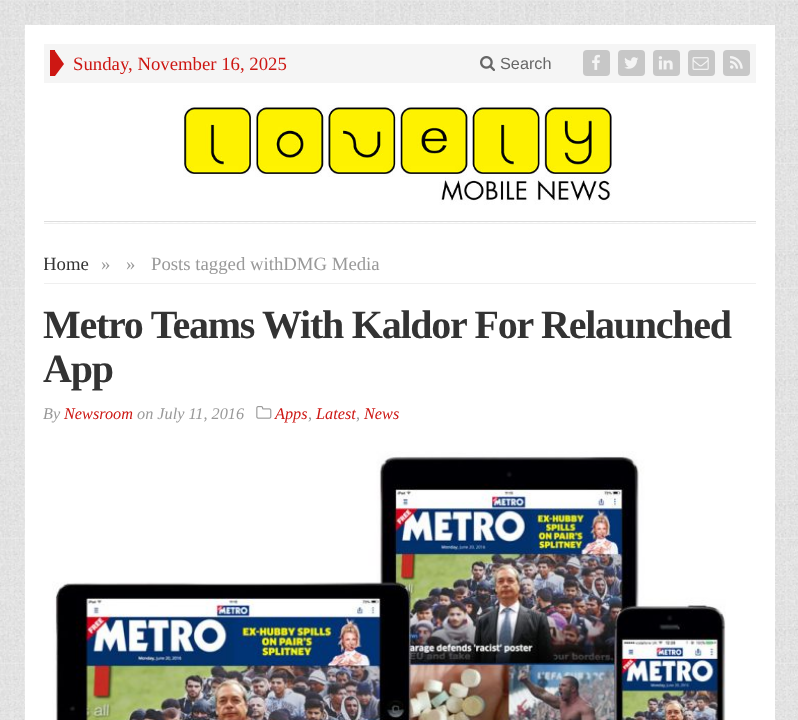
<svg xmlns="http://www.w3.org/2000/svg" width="798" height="720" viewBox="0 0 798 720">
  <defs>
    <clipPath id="clip1"><path d="M44 249h712v34H44z"/></clipPath>
  </defs>
  <rect width="100%" height="100%" fill="#fff"/>
  <image x="0" y="0" width="798" height="720" href="img/1.png"/>
  <path d="M25 25h750v695H25z" fill="#fff"/>
  <path d="M44 44h712v39H44z" fill="#f5f5f5"/>
  <path d="M50 50h5v26H50z" fill="#cd1713"/>
  <path d="M55 76V51L64 64Z" fill="#cd1713"/>
  <image x="480" y="56" width="15" height="15" href="img/2.png"/>
  <rect x="583" y="50" width="27" height="26" rx="4" fill="#c7c7c7"/>
  <image x="592" y="54" width="8" height="16" href="img/3.png"/>
  <rect x="618" y="50" width="27" height="26" rx="4" fill="#c7c7c7"/>
  <image x="624" y="57" width="15" height="12" href="img/4.png"/>
  <rect x="653" y="50" width="27" height="26" rx="4" fill="#c7c7c7"/>
  <image x="658" y="56" width="15" height="14" href="img/5.png"/>
  <rect x="688" y="50" width="27" height="26" rx="4" fill="#c7c7c7"/>
  <image x="692" y="57" width="17" height="13" href="img/6.png"/>
  <rect x="723" y="50" width="27" height="26" rx="4" fill="#c7c7c7"/>
  <image x="730" y="56" width="13" height="13" href="img/7.png"/>
  <image x="183" y="105" width="429" height="100" href="img/8.png"/>
  <image x="44" y="222" width="712" height="1" href="img/9.png"/>
  <path d="M44 221h712v1H44z" fill="#ddd"/>
  <path d="M44 223h712v1H44z" fill="#efefef"/>
  <path d="M44 283h712v1H44z" fill="#efefef"/>
  <image x="256" y="406" width="16" height="13" href="img/10.png"/>
  <image x="52" y="451" width="674" height="269" href="img/11.png"/>
  <text x="73" y="70" font-family="Liberation Serif" font-size="18.75" fill="#cd1713">Sunday, November 16, 2025</text>
  <text x="500" y="69" font-family="Liberation Sans" font-size="16.25" fill="#666">Search</text>
  <g clip-path="url(#clip1)">
    <text x="43" y="270" font-family="Liberation Serif" font-size="18.75" fill="#333">Home</text>
  </g>
  <g font-family="Liberation Serif" font-size="18.75" fill="#999">
    <text x="101" y="270">»</text>
    <text x="126" y="270">»</text>
    <text x="151" y="270">Posts tagged withDMG Media</text>
  </g>
  <g font-family="Liberation Serif" font-size="40" font-weight="bold" letter-spacing="-1.25" fill="#333">
    <text x="43" y="338">Metro Teams With Kaldor For Relaunched</text>
    <text x="43" y="382">App</text>
  </g>
  <text x="43" y="419" font-family="Liberation Serif" font-size="16.25" font-style="italic" fill="#999">By</text>
  <text x="64" y="419" font-family="Liberation Serif" font-size="16.25" font-style="italic" fill="#cd1713">Newsroom</text>
  <text x="137" y="419" font-family="Liberation Serif" font-size="16.25" font-style="italic" fill="#999">on July 11, 2016</text>
  <text x="275" y="419" font-family="Liberation Serif" font-size="16.25" font-style="italic" fill="#cd1713">Apps</text>
  <text x="308" y="419" font-family="Liberation Serif" font-size="16.25" font-style="italic" fill="#999">,</text>
  <text x="316" y="419" font-family="Liberation Serif" font-size="16.25" font-style="italic" fill="#cd1713">Latest</text>
  <text x="356" y="419" font-family="Liberation Serif" font-size="16.25" font-style="italic" fill="#999">,</text>
  <text x="364" y="419" font-family="Liberation Serif" font-size="16.25" font-style="italic" fill="#cd1713">News</text>
</svg>
